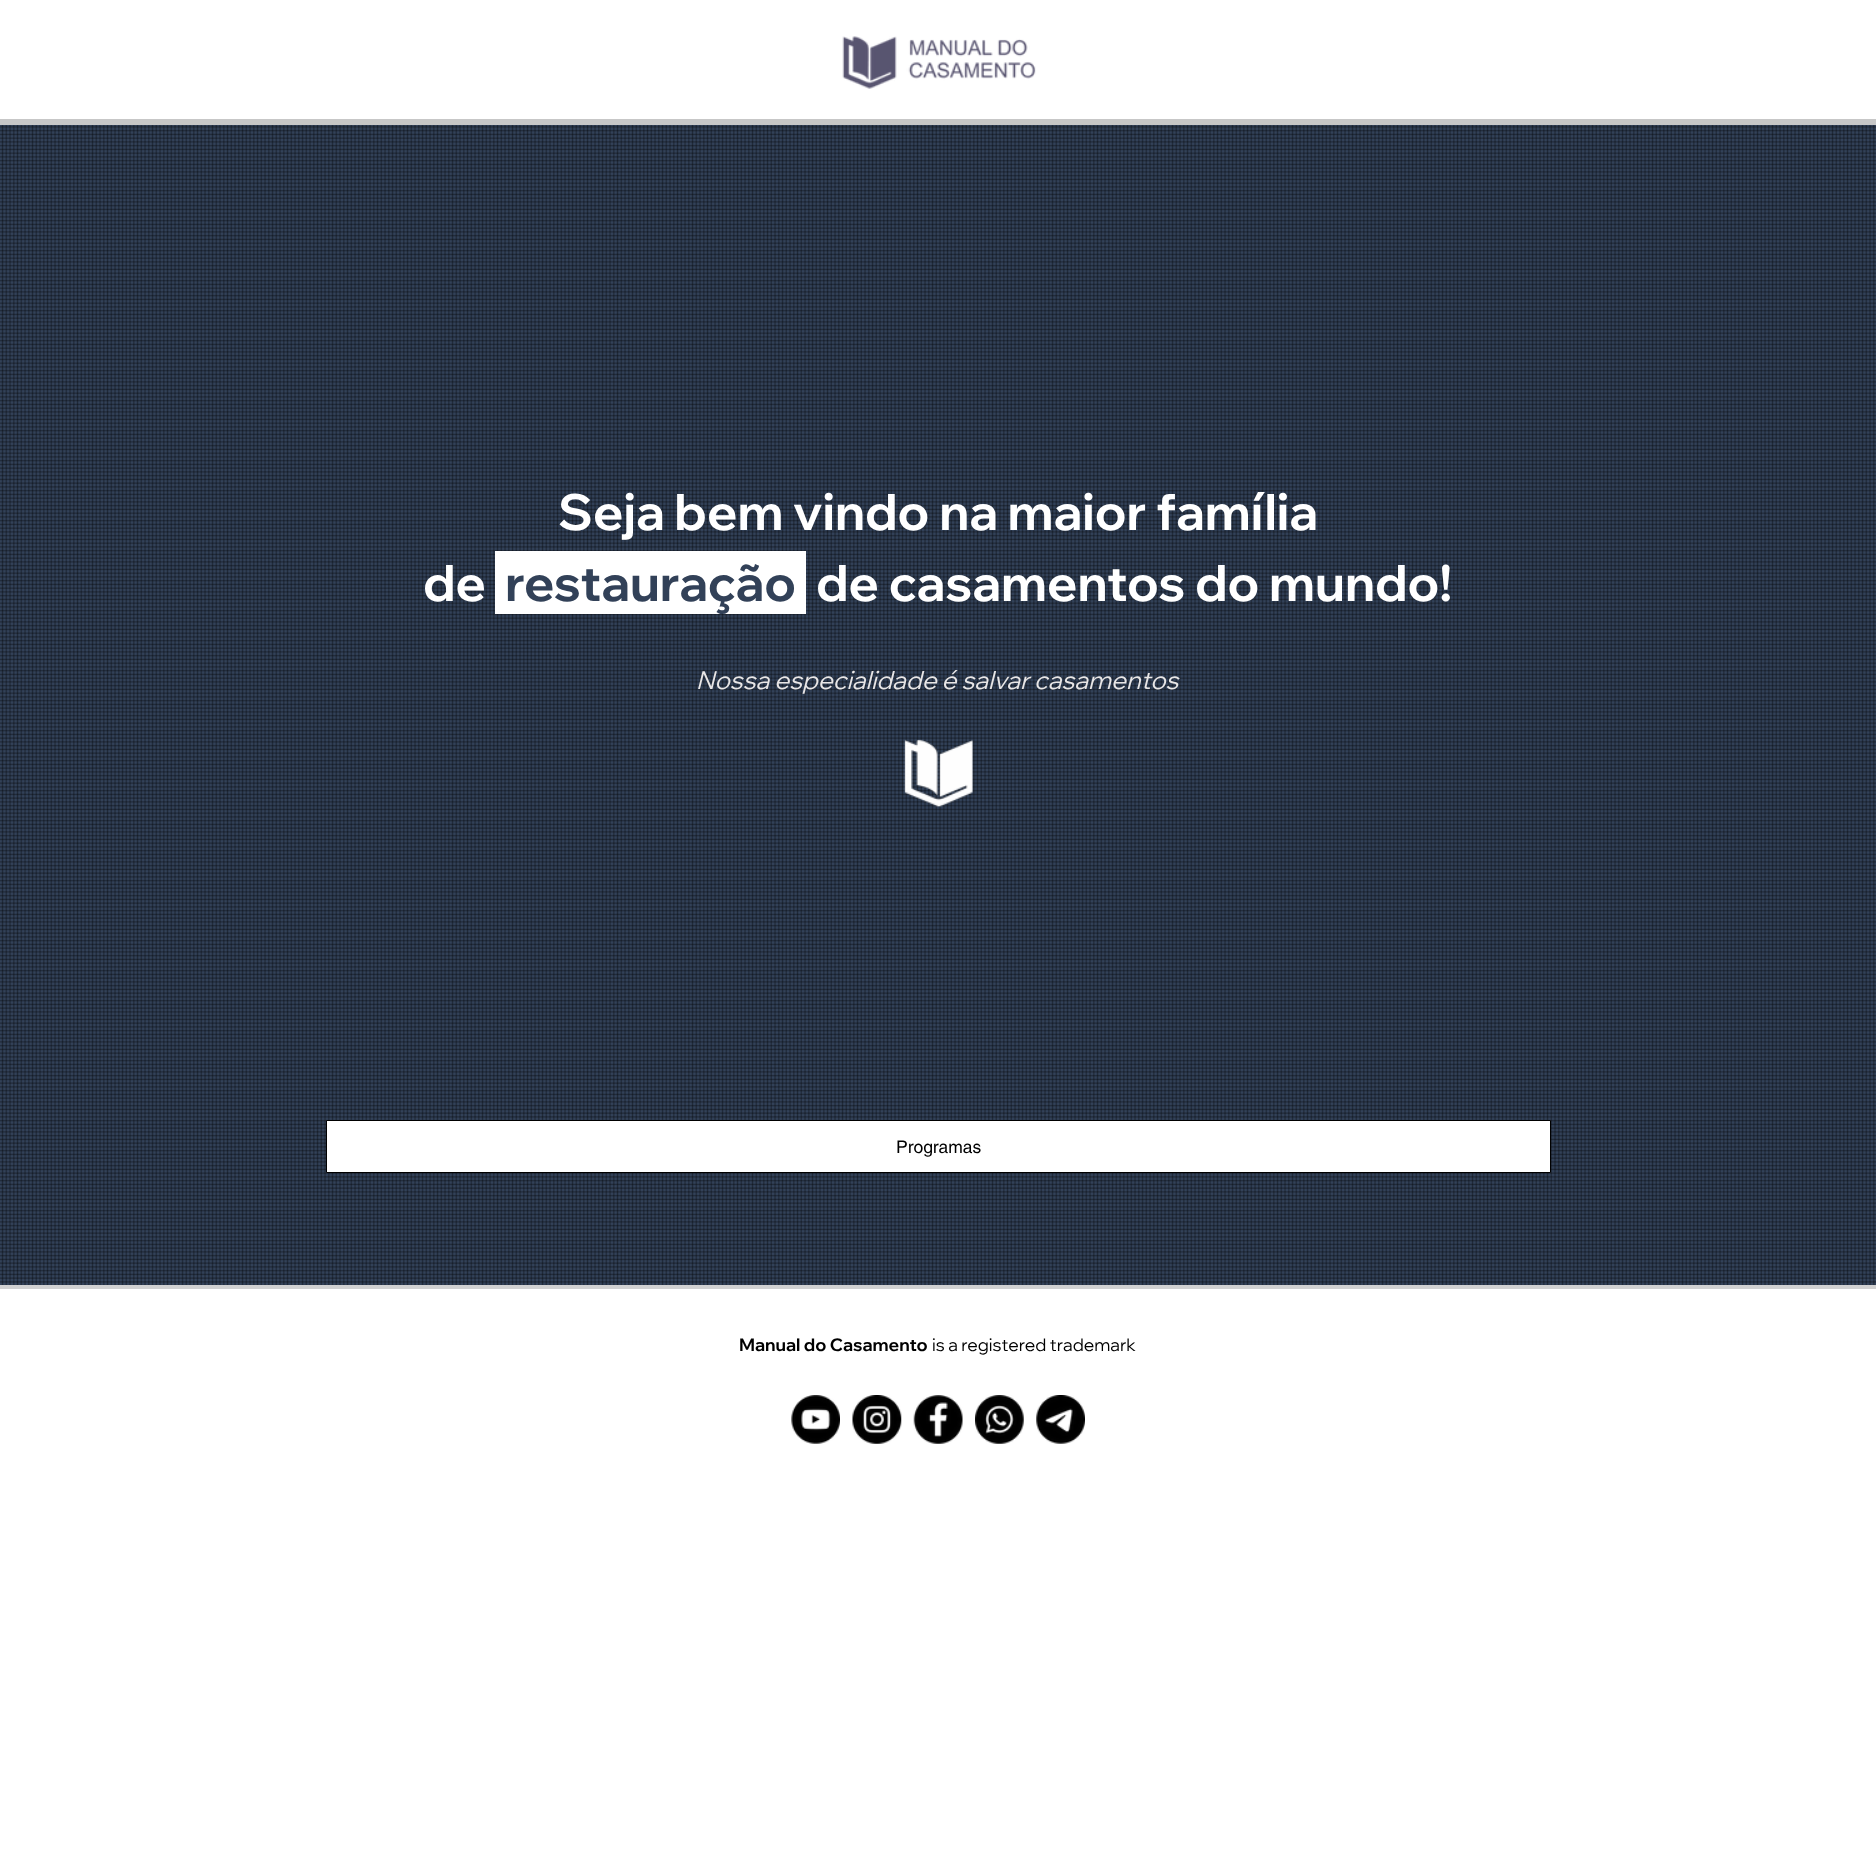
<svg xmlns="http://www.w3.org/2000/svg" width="1876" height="1874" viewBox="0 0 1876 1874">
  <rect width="100%" height="100%" fill="#fff"/>
  <image x="842" y="36" width="194" height="53" href="img/1.png"/>
  <path d="M0 119h1876v6H0z" fill="#c7c7c7"/>
  <path d="M0 125h1876v1160H0z" fill="#324158"/>
  <image x="0" y="125" width="1876" height="1160" href="img/2.png"/>
  <path d="M495 551h311v63H495z" fill="#fff"/>
  <image x="903" y="739" width="70" height="68" href="img/3.png"/>
  <path d="M326.5 1120.5h1224v52H326.5z" fill="#fff" stroke="#000"/>
  <path d="M0 1285h1876v4H0z" fill="#d1d1d1"/>
  <image x="791" y="1395" width="49" height="49" href="img/4.png"/>
  <image x="852" y="1395" width="50" height="49" href="img/5.png"/>
  <image x="913" y="1395" width="50" height="49" href="img/6.png"/>
  <image x="975" y="1395" width="49" height="49" href="img/7.png"/>
  <image x="1036" y="1395" width="49" height="49" href="img/8.png"/>
  <g font-family="Wix Madefor Display" font-size="50" font-weight="bold" fill="#fff">
    <text x="558" y="530">Seja bem vindo na maior família</text>
    <text x="423" y="601">de</text>
  </g>
  <text x="505" y="601" font-family="Wix Madefor Display" font-size="50" font-weight="bold" fill="#324158">restauração</text>
  <text x="816" y="601" font-family="Wix Madefor Display" font-size="50" font-weight="bold" fill="#fff">de casamentos do mundo!</text>
  <text x="696" y="689" font-family="Wix Madefor Display" font-size="25" font-style="italic" fill="#e8e6e6">Nossa especialidade é salvar casamentos</text>
  <text x="896" y="1153" font-family="helvetica" font-size="17.5" fill="#000">Programas</text>
  <text x="739" y="1351" font-family="Wix Madefor Display" font-size="17.5" font-weight="bold" fill="#000">Manual do Casamento</text>
  <text x="932" y="1351" font-family="Wix Madefor Display" font-size="17.5" fill="#000">is a registered trademark</text>
</svg>
